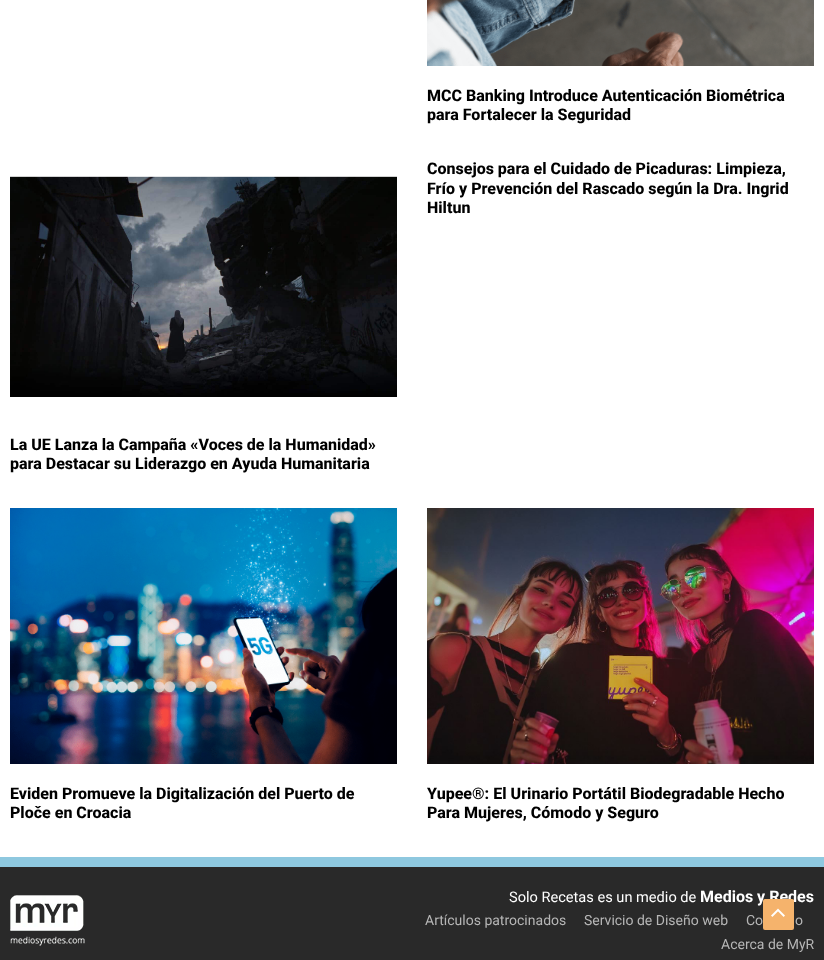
<svg xmlns="http://www.w3.org/2000/svg" width="824" height="960" viewBox="0 0 824 960">
  <rect width="100%" height="100%" fill="#fff"/>
  <image x="427" y="0" width="387" height="66" href="img/1.png"/>
  <image x="10" y="176" width="387" height="221" href="img/2.png"/>
  <image x="10" y="508" width="387" height="256" href="img/3.png"/>
  <image x="427" y="508" width="387" height="256" href="img/4.png"/>
  <path d="M0 867h824v93H0z" fill="#292929"/>
  <path d="M0 857h824v10H0z" fill="#8ec8df"/>
  <image x="10" y="895" width="75" height="51" href="img/5.png"/>
  <g font-family="Roboto" font-size="16" font-weight="800" fill="#000">
    <text x="427" y="101">MCC Banking Introduce Autenticación Biométrica</text>
    <text x="427" y="120">para Fortalecer la Seguridad</text>
    <text x="427" y="174">Consejos para el Cuidado de Picaduras: Limpieza,</text>
    <text x="427" y="194">Frío y Prevención del Rascado según la Dra. Ingrid</text>
    <text x="427" y="213">Hiltun</text>
    <text x="10" y="450">La UE Lanza la Campaña «Voces de la Humanidad»</text>
    <text x="10" y="469">para Destacar su Liderazgo en Ayuda Humanitaria</text>
    <text x="10" y="799">Eviden Promueve la Digitalización del Puerto de</text>
    <text x="10" y="818">Ploče en Croacia</text>
    <text x="427" y="799">Yupee®: El Urinario Portátil Biodegradable Hecho</text>
    <text x="427" y="818">Para Mujeres, Cómodo y Seguro</text>
  </g>
  <text x="509" y="902" font-family="Roboto" font-size="14.6" fill="#fff">Solo Recetas es un medio de</text>
  <text x="700" y="902" font-family="Roboto" font-size="16" font-weight="bold" fill="#fff">Medios y Redes</text>
  <g font-family="Roboto" font-size="14" fill="#b6b6b6">
    <text x="425" y="925">Artículos patrocinados</text>
    <text x="584" y="925">Servicio de Diseño web</text>
    <text x="746" y="925">Co</text>
    <text x="795" y="925">o</text>
    <text x="721" y="949">Acerca de MyR</text>
  </g>
  <rect x="763" y="899" width="31" height="31" rx="2" fill="#f5b36c"/>
  <image x="771" y="908" width="14" height="9" href="img/6.png"/>
</svg>
